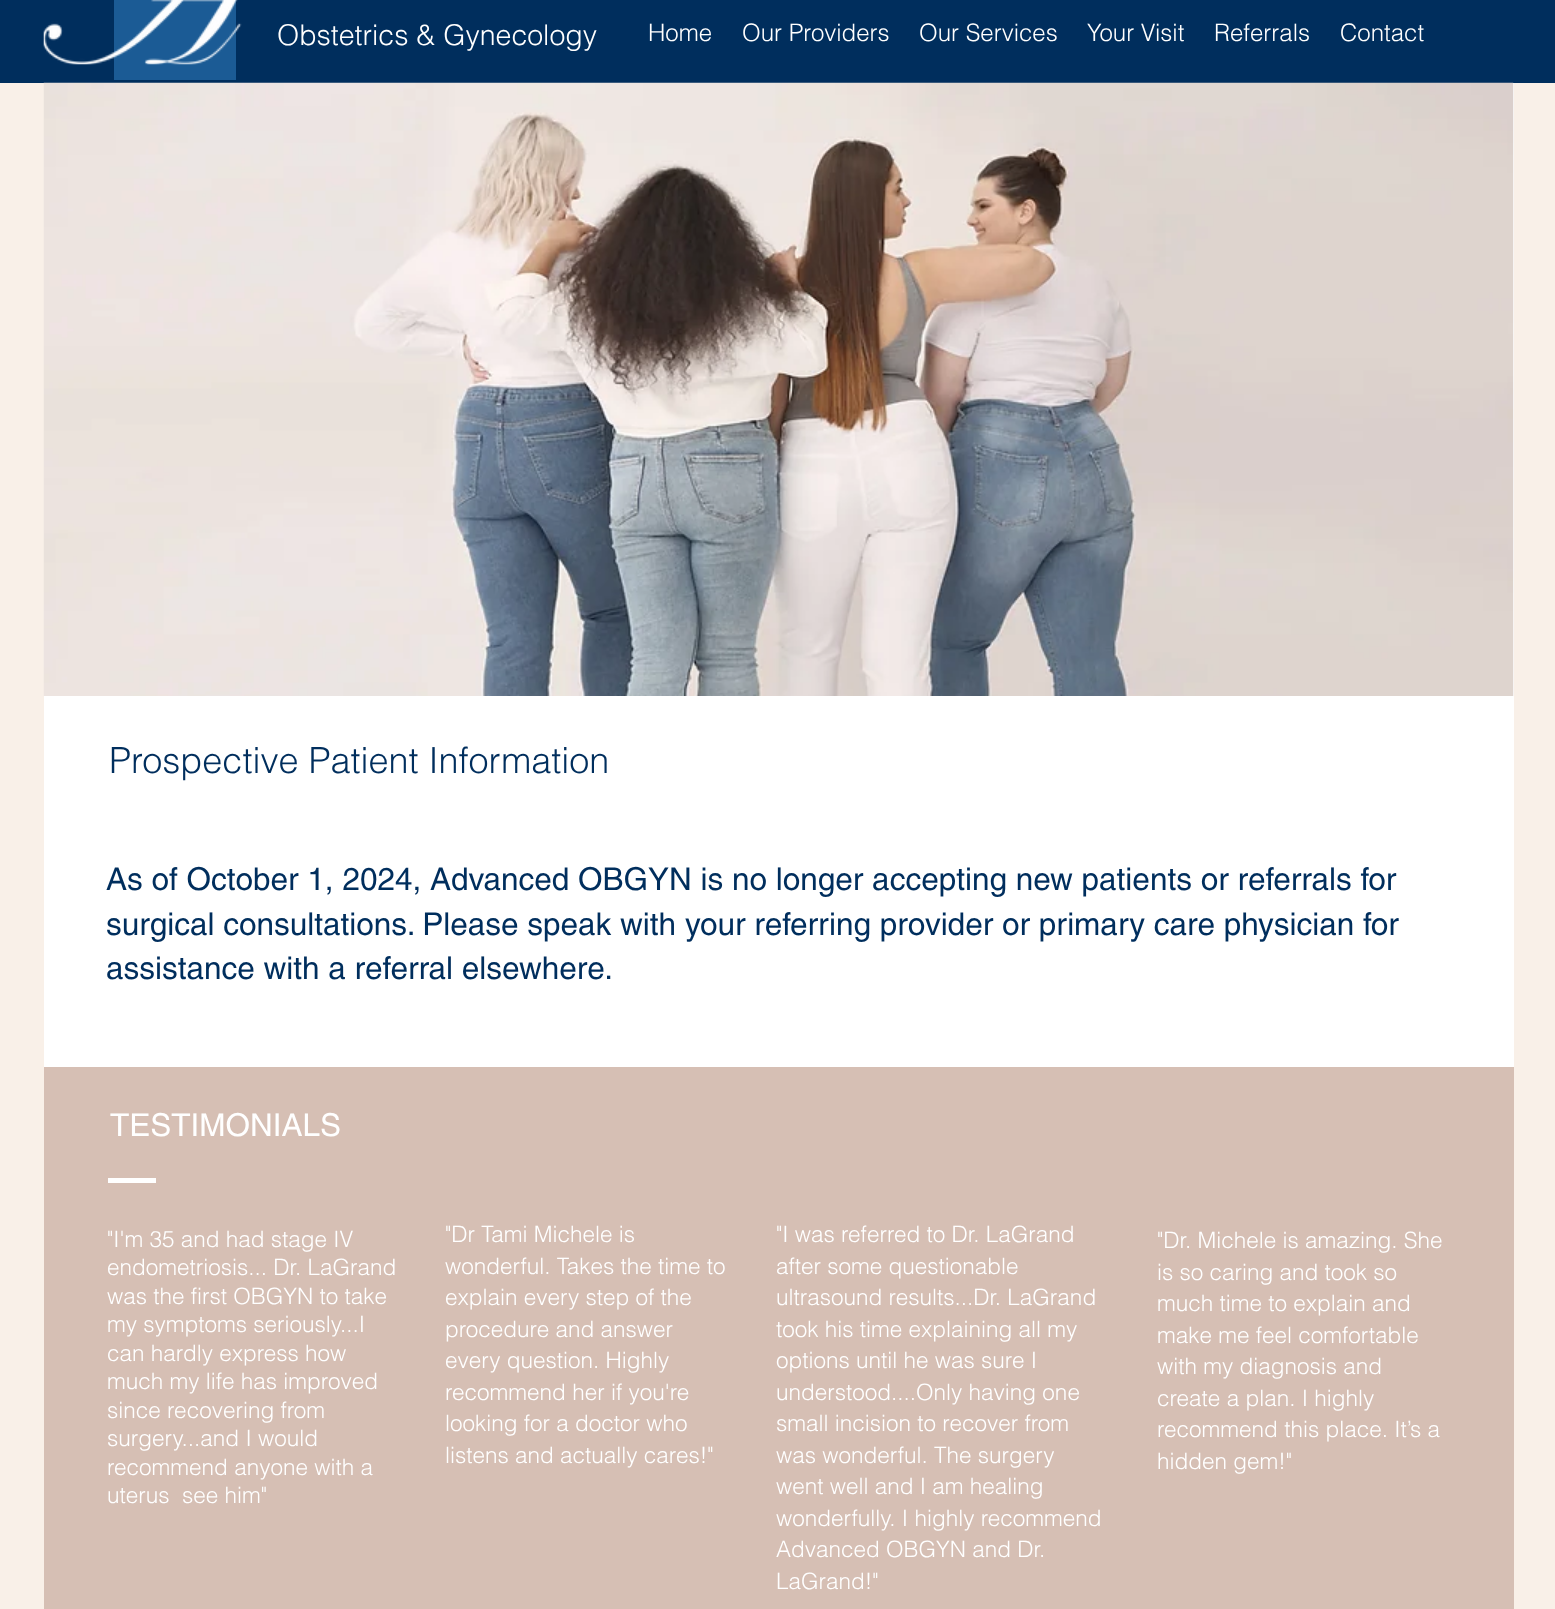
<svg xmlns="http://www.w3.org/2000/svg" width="1555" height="1609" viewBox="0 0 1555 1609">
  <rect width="100%" height="100%" fill="#f9f0e8"/>
  <path d="M0 0h1555v83H0z" fill="#002e5d"/>
  <path d="M114 0h122v80H114z" fill="#1b5b95"/>
  <image x="43" y="0" width="199" height="65" href="img/1.png"/>
  <path d="M44 83h1470v984H44z" fill="#fff"/>
  <image x="43" y="82" width="1471" height="614" href="img/2.png"/>
  <path d="M44 1067h1470v542H44z" fill="#d6bfb4"/>
  <path d="M108 1178h48v5H108z" fill="#fff"/>
  <text x="277" y="45" font-family="helvetica" font-size="28.5" font-weight="300" fill="#fff">Obstetrics &amp; Gynecology</text>
  <g font-family="helvetica" font-size="24" font-weight="300" fill="#fff">
    <text x="648" y="41">Home</text>
    <text x="742" y="41">Our Providers</text>
    <text x="919" y="41">Our Services</text>
    <text x="1087" y="41">Your Visit</text>
    <text x="1214" y="41">Referrals</text>
    <text x="1340" y="41">Contact</text>
  </g>
  <text x="109" y="773" font-family="helvetica" font-size="36" font-weight="300" fill="#002e5d">Prospective Patient Information</text>
  <g font-family="helvetica" font-size="31.5" fill="#002e5d">
    <text x="106" y="890">As of October 1, 2024, Advanced OBGYN is no longer accepting new patients or referrals for</text>
    <text x="106" y="935">surgical consultations. Please speak with your referring provider or primary care physician for</text>
    <text x="106" y="979">assistance with a referral elsewhere.</text>
  </g>
  <text x="110" y="1136" font-family="helvetica" font-size="31.5" fill="#fff">TESTIMONIALS</text>
  <g font-family="helvetica" font-size="22.5" font-weight="300" fill="#fff">
    <text x="107" y="1247">"I'm 35 and had stage IV</text>
    <text x="107" y="1275">endometriosis... Dr. LaGrand</text>
    <text x="107" y="1304">was the first OBGYN to take</text>
    <text x="107" y="1332">my symptoms seriously...I</text>
    <text x="107" y="1361">can hardly express how</text>
    <text x="107" y="1389">much my life has improved</text>
    <text x="107" y="1418">since recovering from</text>
    <text x="107" y="1446">surgery...and I would</text>
    <text x="107" y="1475">recommend anyone with a</text>
    <text x="107" y="1503" xml:space="preserve">uterus  see him"</text>
    <text x="445" y="1242">"Dr Tami Michele is</text>
    <text x="445" y="1274">wonderful. Takes the time to</text>
    <text x="445" y="1305">explain every step of the</text>
    <text x="445" y="1337">procedure and answer</text>
    <text x="445" y="1368">every question. Highly</text>
    <text x="445" y="1400">recommend her if you're</text>
    <text x="445" y="1431">looking for a doctor who</text>
    <text x="445" y="1463">listens and actually cares!"</text>
    <text x="776" y="1242">"I was referred to Dr. LaGrand</text>
    <text x="776" y="1274">after some questionable</text>
    <text x="776" y="1305">ultrasound results...Dr. LaGrand</text>
    <text x="776" y="1337">took his time explaining all my</text>
    <text x="776" y="1368">options until he was sure I</text>
    <text x="776" y="1400">understood....Only having one</text>
    <text x="776" y="1431">small incision to recover from</text>
    <text x="776" y="1463">was wonderful. The surgery</text>
    <text x="776" y="1494">went well and I am healing</text>
    <text x="776" y="1526">wonderfully. I highly recommend</text>
    <text x="776" y="1557">Advanced OBGYN and Dr.</text>
    <text x="776" y="1589">LaGrand!"</text>
    <text x="1157" y="1248">"Dr. Michele is amazing. She</text>
    <text x="1157" y="1280">is so caring and took so</text>
    <text x="1157" y="1311">much time to explain and</text>
    <text x="1157" y="1343">make me feel comfortable</text>
    <text x="1157" y="1374">with my diagnosis and</text>
    <text x="1157" y="1406">create a plan. I highly</text>
    <text x="1157" y="1437">recommend this place. It’s a</text>
    <text x="1157" y="1469">hidden gem!"</text>
  </g>
</svg>
